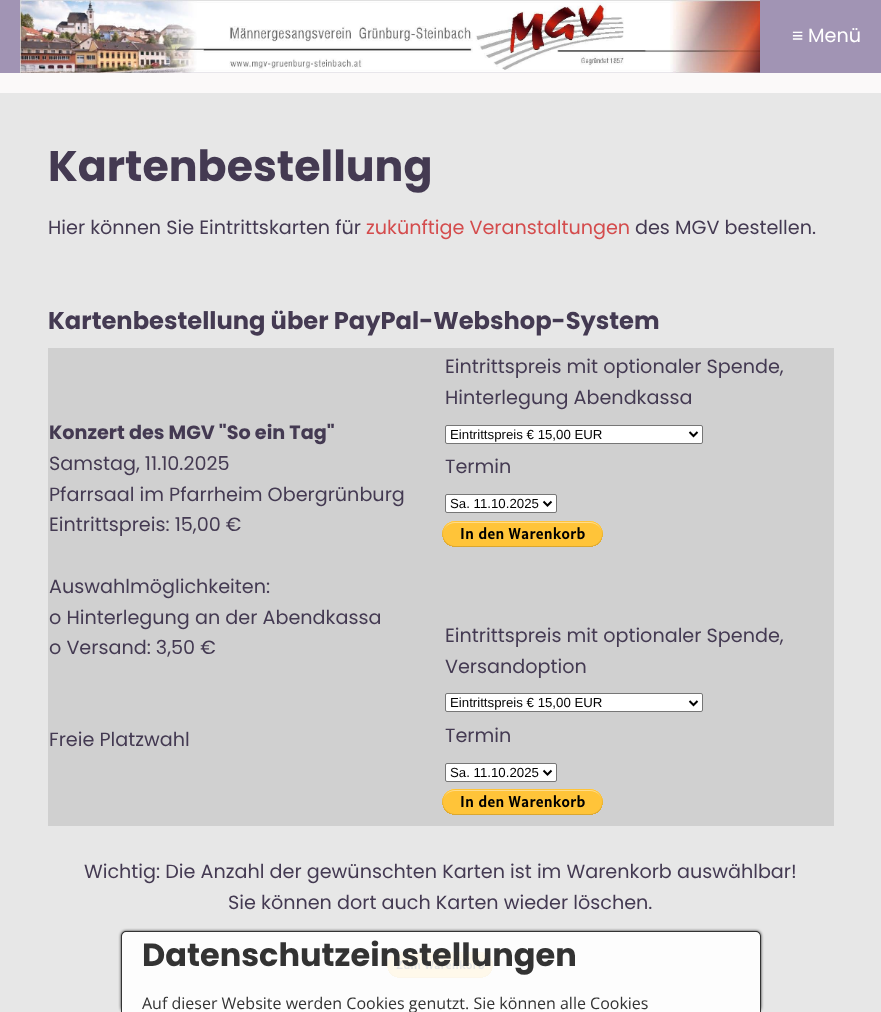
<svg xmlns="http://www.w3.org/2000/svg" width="881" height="1012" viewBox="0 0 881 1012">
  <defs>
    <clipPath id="clip1"><path d="M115 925H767V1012H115ZM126 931H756C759 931 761 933 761 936V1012H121V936C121 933 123 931 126 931Z" clip-rule="evenodd"/></clipPath>
  </defs>
  <rect width="100%" height="100%" fill="#fbf9f9"/>
  <path d="M0 0h881v73H0z" fill="#a194b4"/>
  <image x="20" y="0" width="740" height="73" href="img/1.png"/>
  <path d="M0 93h881v919H0z" fill="#e7e7e7"/>
  <path d="M48 348h786v478H48z" fill="#d0d0d0"/>
  <rect x="445.5" y="425.5" width="257" height="18" rx="1.5" fill="#fff" stroke="#767676"/>
  <path d="M689.5 432L693.5 436L697.5 432" fill="none" stroke="#000" stroke-width="2"/>
  <rect x="445.5" y="494.5" width="111" height="18" rx="1.5" fill="#fff" stroke="#767676"/>
  <path d="M543.5 501.5L547.5 505.5L551.5 501.5" fill="none" stroke="#000" stroke-width="2"/>
  <image x="442" y="521" width="161" height="26" href="img/2.png"/>
  <rect x="445.5" y="693.5" width="257" height="18" rx="1.5" fill="#fff" stroke="#767676"/>
  <path d="M689.5 701L693.5 705L697.5 701" fill="none" stroke="#000" stroke-width="2"/>
  <rect x="445.5" y="763.5" width="111" height="18" rx="1.5" fill="#fff" stroke="#767676"/>
  <path d="M543.5 770.5L547.5 774.5L551.5 770.5" fill="none" stroke="#000" stroke-width="2"/>
  <image x="442" y="789" width="161" height="26" href="img/2.png"/>
  <image x="387" y="952" width="106" height="26" href="img/3.png"/>
  <g clip-path="url(#clip1)">
    <rect x="121" y="931" width="640" height="81" rx="5" fill="#000000cc" filter="blur(1.5px)"/>
  </g>
  <path d="M126 931H756C759 931 761 933 761 936V1012H121V936C121 933 123 931 126 931Z" fill="#ffffffe6"/>
  <path d="M126 931H756C759 931 761 933 761 936V1012H121V936C121 933 123 931 126 931ZM126 932H756C758 932 760 934 760 936V1012H122V936C122 934 124 932 126 932Z" fill="#333" fill-rule="evenodd"/>
  <text x="792" y="42" font-family="Liberation Sans" font-size="19.2" fill="#fff">≡</text>
  <text x="808" y="42" font-family="Poppins" font-size="19.2" fill="#fff">Menü</text>
  <text x="48" y="181" font-family="Poppins" font-size="42.75" font-weight="bold" fill="#443a52">Kartenbestellung</text>
  <text x="48" y="234" font-family="Poppins" font-size="19.2" fill="#443a52">Hier können Sie Eintrittskarten für</text>
  <text x="366" y="234" font-family="Poppins" font-size="19.2" fill="#d44c4d">zukünftige Veranstaltungen</text>
  <text x="635" y="234" font-family="Poppins" font-size="19.2" fill="#443a52">des MGV bestellen.</text>
  <text x="48" y="329" font-family="Poppins" font-size="24.2" font-weight="bold" fill="#443a52">Kartenbestellung über PayPal-Webshop-System</text>
  <text x="49" y="439" font-family="Poppins" font-size="19.2" font-weight="bold" fill="#443a52">Konzert des MGV "So ein Tag"</text>
  <g font-family="Poppins" font-size="19.2" fill="#443a52">
    <text x="49" y="470">Samstag, 11.10.2025</text>
    <text x="49" y="501">Pfarrsaal im Pfarrheim Obergrünburg</text>
    <text x="49" y="531">Eintrittspreis: 15,00 €</text>
    <text x="49" y="593">Auswahlmöglichkeiten:</text>
    <text x="49" y="624">o Hinterlegung an der Abendkassa</text>
    <text x="49" y="654">o Versand: 3,50 €</text>
    <text x="49" y="746">Freie Platzwahl</text>
    <text x="445" y="373">Eintrittspreis mit optionaler Spende,</text>
    <text x="445" y="404">Hinterlegung Abendkassa</text>
  </g>
  <text x="450" y="439" font-family="Liberation Sans" font-size="13.25" fill="#000">Eintrittspreis € 15,00 EUR</text>
  <text x="445" y="473" font-family="Poppins" font-size="19.2" fill="#443a52">Termin</text>
  <text x="450" y="508" font-family="Liberation Sans" font-size="13.25" fill="#000">Sa. 11.10.2025</text>
  <g font-family="Poppins" font-size="19.2" fill="#443a52">
    <text x="445" y="642">Eintrittspreis mit optionaler Spende,</text>
    <text x="445" y="673">Versandoption</text>
  </g>
  <text x="450" y="707" font-family="Liberation Sans" font-size="13.25" fill="#000">Eintrittspreis € 15,00 EUR</text>
  <text x="445" y="742" font-family="Poppins" font-size="19.2" fill="#443a52">Termin</text>
  <text x="450" y="777" font-family="Liberation Sans" font-size="13.25" fill="#000">Sa. 11.10.2025</text>
  <g font-family="Poppins" font-size="19.2" fill="#443a52">
    <text x="84" y="878">Wichtig: Die Anzahl der gewünschten Karten ist im Warenkorb auswählbar!</text>
    <text x="228" y="909">Sie können dort auch Karten wieder löschen.</text>
  </g>
  <text x="142" y="966" font-family="Poppins" font-size="32" font-weight="bold" fill="#333">Datenschutzeinstellungen</text>
  <text x="142" y="1009" font-family="Open Sans" font-size="16" fill="#333">Auf dieser Website werden Cookies genutzt. Sie können alle Cookies</text>
</svg>
